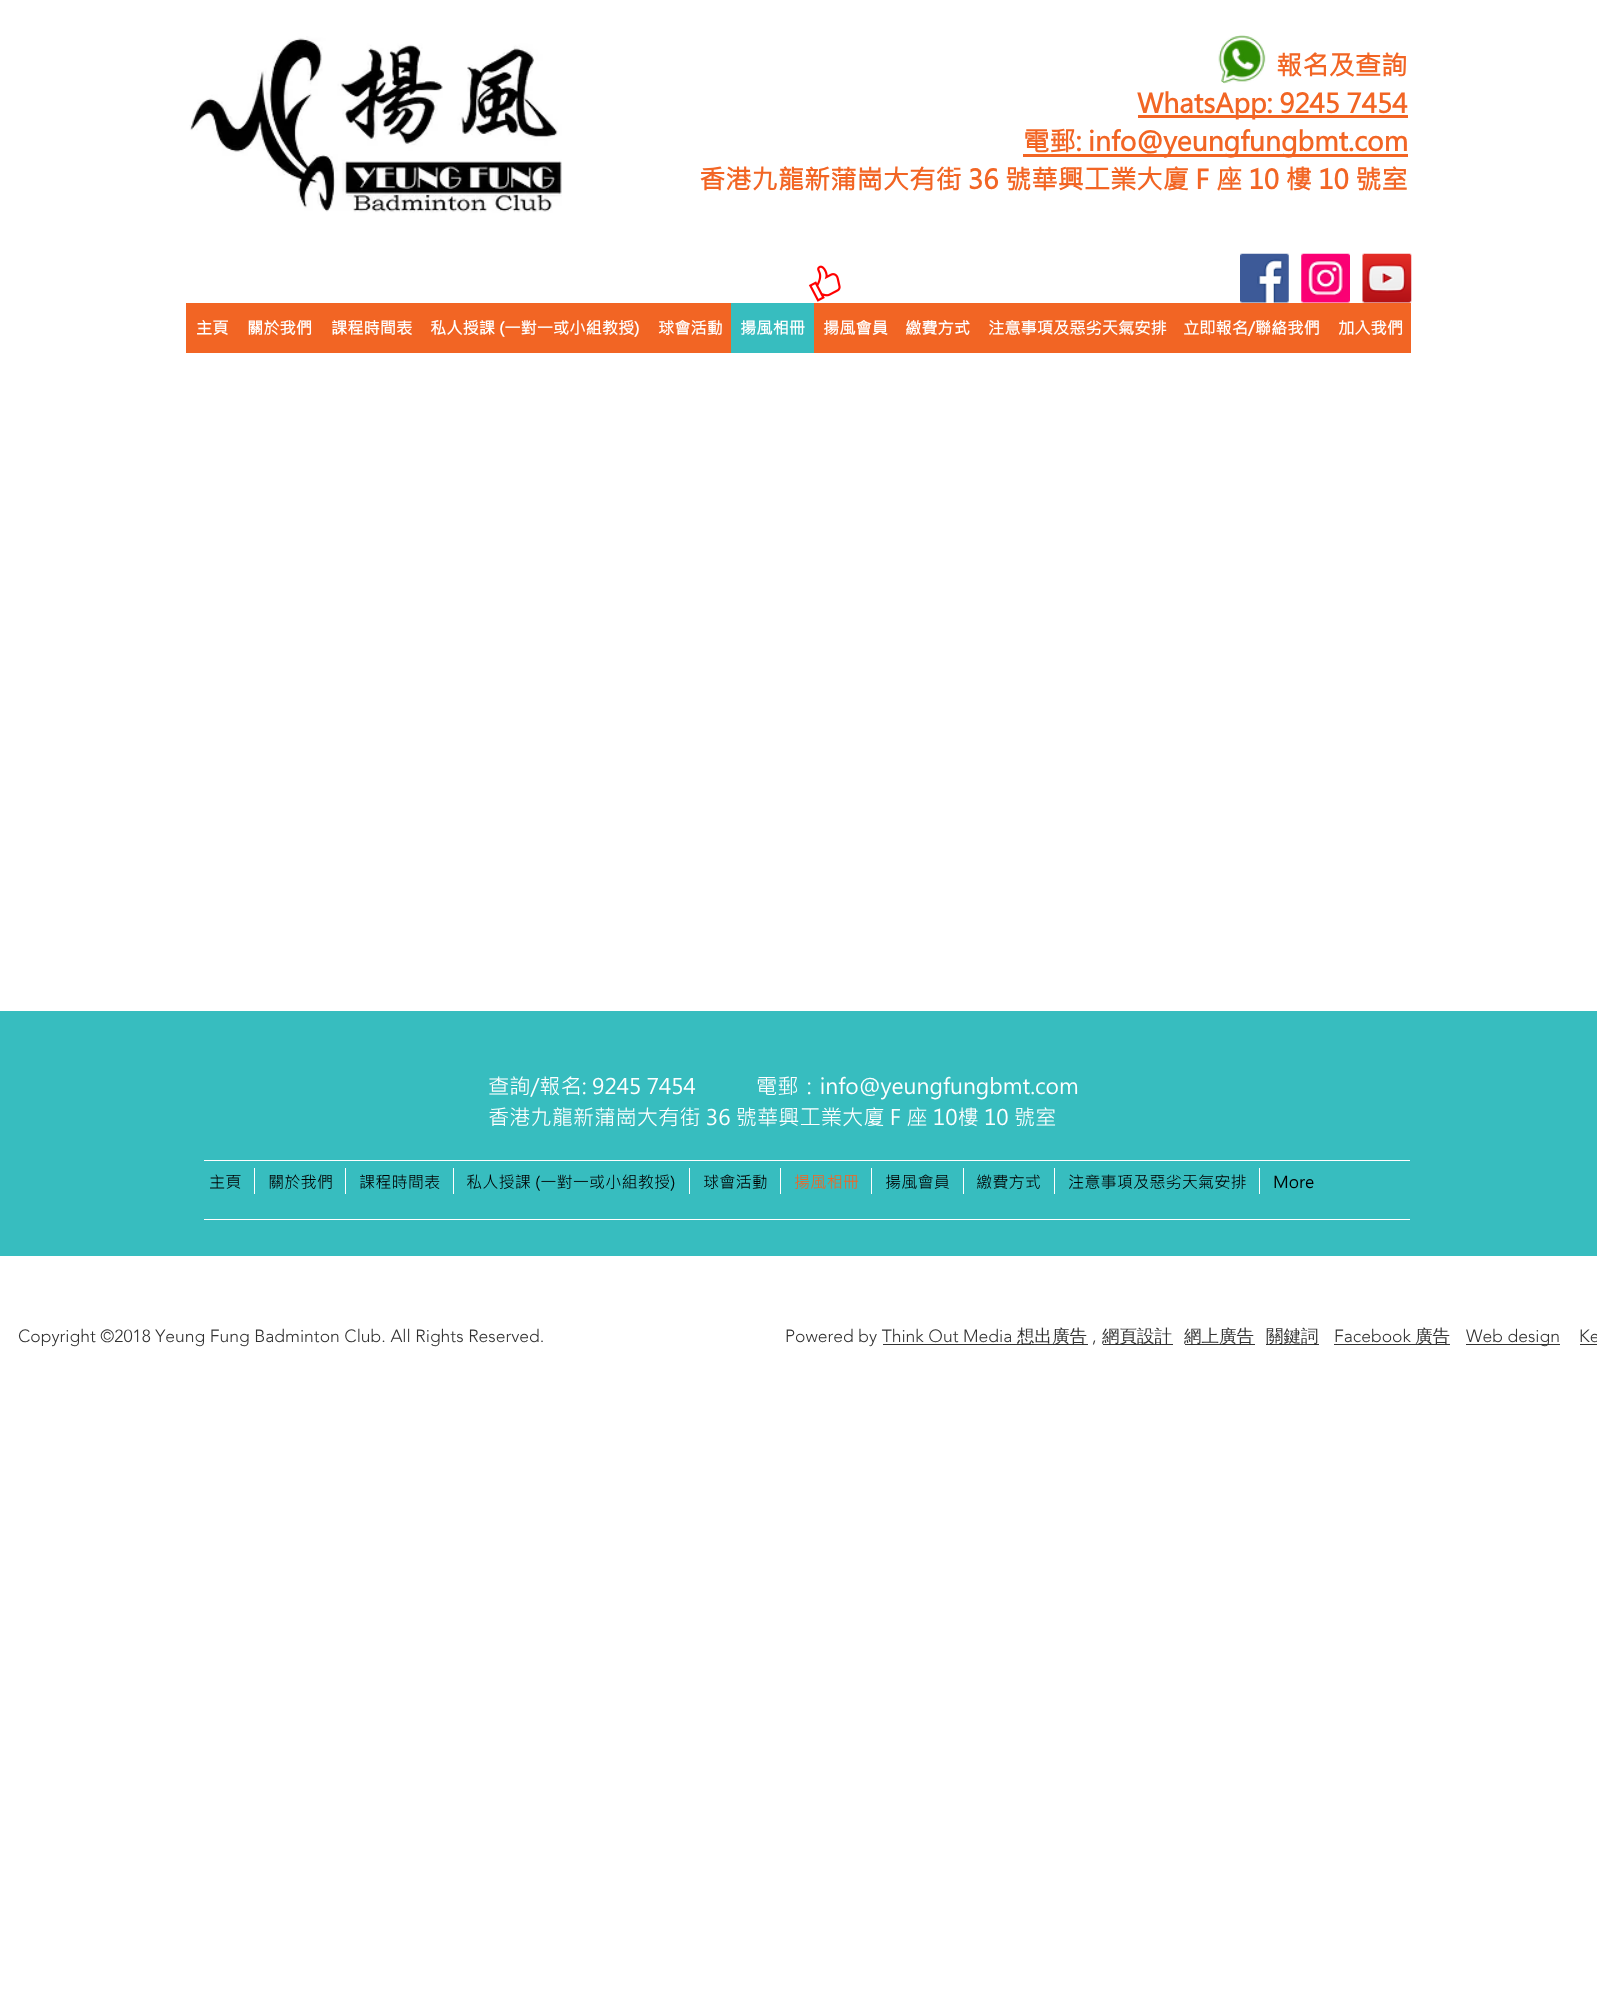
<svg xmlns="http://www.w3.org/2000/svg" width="1597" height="2015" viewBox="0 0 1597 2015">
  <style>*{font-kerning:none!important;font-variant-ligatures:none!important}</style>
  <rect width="100%" height="100%" fill="#fff"/>
  <image x="189" y="36" width="373" height="177" href="img/1.png"/>
  <image x="1218" y="35" width="48" height="49" href="img/2.png"/>
  <path d="M1138 115h270v3H1138z" fill="#f26524"/>
  <path d="M1023 154h385v3H1023z" fill="#f26524"/>
  <image x="808" y="265" width="33" height="37" href="img/3.png"/>
  <image x="1240" y="253" width="49" height="50" href="img/4.png"/>
  <image x="1301" y="253" width="49" height="50" href="img/5.png"/>
  <image x="1362" y="253" width="50" height="50" href="img/6.png"/>
  <path d="M186 303h545v50H186z" fill="#f26524"/>
  <path d="M731 303h83v50H731z" fill="#37bdbf"/>
  <path d="M814 303h597v50H814z" fill="#f26524"/>
  <path d="M0 1011h1597v245H0z" fill="#37bdbf"/>
  <path d="M204 1160h1206v1H204z" fill="#fff"/>
  <path d="M254 1168h1v26H254z" fill="#fff"/>
  <path d="M345 1168h1v26H345z" fill="#fff"/>
  <path d="M453 1168h1v26H453z" fill="#fff"/>
  <path d="M689 1168h1v26H689z" fill="#fff"/>
  <path d="M780 1168h1v26H780z" fill="#fff"/>
  <path d="M871 1168h1v26H871z" fill="#fff"/>
  <path d="M963 1168h1v26H963z" fill="#fff"/>
  <path d="M1054 1168h1v26H1054z" fill="#fff"/>
  <path d="M1259 1168h1v26H1259z" fill="#fff"/>
  <path d="M204 1219h1206v1H204z" fill="#fff"/>
  <path d="M883 1344h205v1H883z" fill="#323232"/>
  <path d="M1103 1344h70v1H1103z" fill="#323232"/>
  <path d="M1185 1344h70v1H1185z" fill="#323232"/>
  <path d="M1266 1344h53v1H1266z" fill="#323232"/>
  <path d="M1334 1344h116v1H1334z" fill="#323232"/>
  <path d="M1466 1344h94v1H1466z" fill="#323232"/>
  <path d="M1580 1344h17v1H1580z" fill="#323232"/>
  <g font-family="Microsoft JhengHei" font-size="26.25" font-weight="bold" fill="#f26524">
    <text x="1276" y="75">報名及查詢</text>
    <text x="1137" y="113">WhatsApp: 9245 7454</text>
    <text x="1023" y="151">電郵: info@yeungfungbmt.com</text>
    <text x="699" y="189">香港九龍新蒲崗大有街 36 號華興工業大廈 F 座 10 樓 10 號室</text>
  </g>
  <g font-family="Microsoft JhengHei" font-size="16.25" font-weight="bold" fill="#fff">
    <text x="196" y="334">主頁</text>
    <text x="247" y="334">關於我們</text>
    <text x="331" y="334">課程時間表</text>
    <text x="430" y="334">私人授課 (一對一或小組教授)</text>
    <text x="658" y="334">球會活動</text>
    <text x="740" y="334">揚風相冊</text>
    <text x="823" y="334">揚風會員</text>
    <text x="905" y="334">繳費方式</text>
    <text x="988" y="334">注意事項及惡劣天氣安排</text>
    <text x="1183" y="334">立即報名/聯絡我們</text>
    <text x="1338" y="334">加入我們</text>
  </g>
  <g font-family="Microsoft JhengHei" font-size="21.25" fill="#fff">
    <text x="488" y="1094">查詢/報名: 9245 7454</text>
    <text x="756" y="1094">電郵：info@yeungfungbmt.com</text>
    <text x="488" y="1125">香港九龍新蒲崗大有街 36 號華興工業大廈 F 座 10樓 10 號室</text>
  </g>
  <g font-family="Microsoft JhengHei" font-size="16.25" fill="#000">
    <text x="209" y="1188">主頁</text>
    <text x="268" y="1188">關於我們</text>
    <text x="359" y="1188">課程時間表</text>
    <text x="466" y="1188">私人授課 (一對一或小組教授)</text>
    <text x="703" y="1188">球會活動</text>
  </g>
  <text x="794" y="1188" font-family="Microsoft JhengHei" font-size="16.25" fill="#f26524">揚風相冊</text>
  <g font-family="Microsoft JhengHei" font-size="16.25" fill="#000">
    <text x="885" y="1188">揚風會員</text>
    <text x="976" y="1188">繳費方式</text>
    <text x="1068" y="1188">注意事項及惡劣天氣安排</text>
    <text x="1273" y="1188">More</text>
  </g>
  <g font-family="'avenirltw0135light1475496'" font-size="17.5" font-weight="300" fill="#323232">
    <text x="18" y="1342">Copyright ©2018 Yeung Fung Badminton Club. All Rights Reserved.</text>
    <text x="785" y="1342">Powered by Think Out Media</text>
  </g>
  <text x="1017" y="1342" font-family="WenQuanYi Zen Hei" font-size="17.5" font-weight="500" fill="#323232">想出廣告</text>
  <text x="1092" y="1342" font-family="'avenirltw0135light1475496'" font-size="17.5" font-weight="300" fill="#323232">,</text>
  <g font-family="WenQuanYi Zen Hei" font-size="17.5" font-weight="500" fill="#323232">
    <text x="1102" y="1342">網頁設計</text>
    <text x="1184" y="1342">網上廣告</text>
    <text x="1266" y="1342">關鍵詞</text>
  </g>
  <text x="1334" y="1342" font-family="'avenirltw0135light1475496'" font-size="17.5" font-weight="300" fill="#323232">Facebook</text>
  <text x="1415" y="1342" font-family="WenQuanYi Zen Hei" font-size="17.5" font-weight="500" fill="#323232">廣告</text>
  <g font-family="'avenirltw0135light1475496'" font-size="17.5" font-weight="300" fill="#323232">
    <text x="1466" y="1342">Web design</text>
    <text x="1579" y="1342">Ke</text>
  </g>
</svg>
